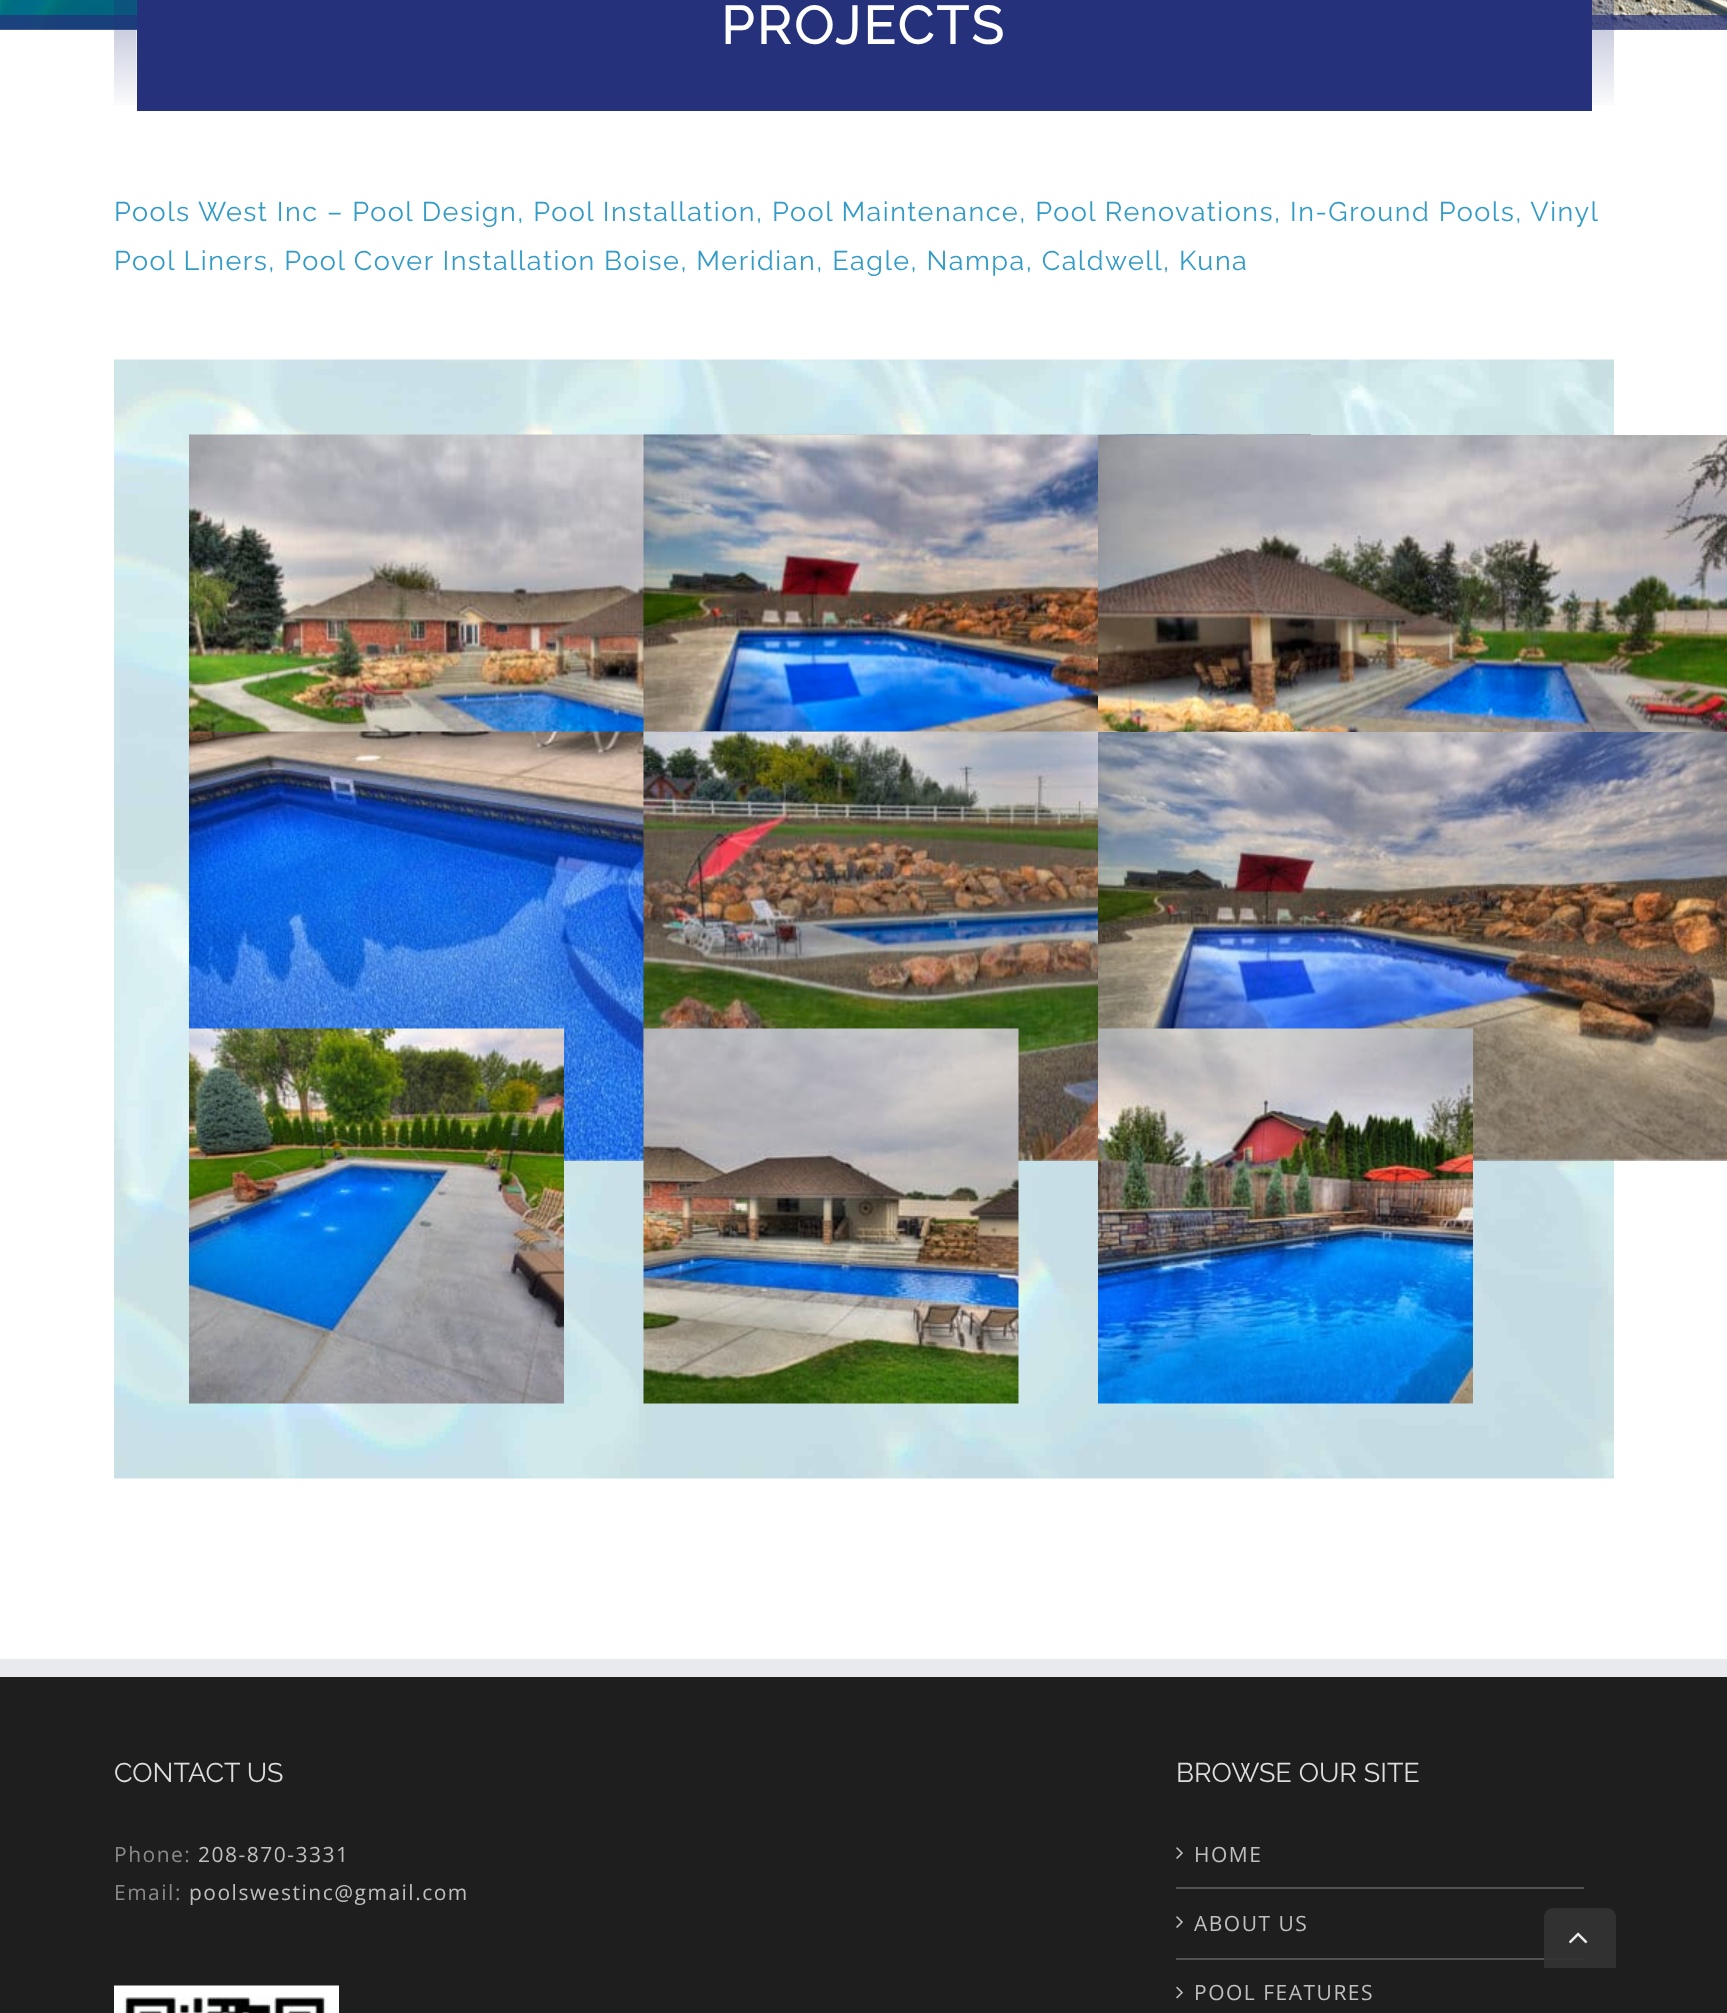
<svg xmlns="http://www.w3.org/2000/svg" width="1727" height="2013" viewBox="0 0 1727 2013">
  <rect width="100%" height="100%" fill="#fff"/>
  <image x="0" y="0" width="1727" height="30" href="img/1.png"/>
  <path d="M0 15h1727v15H0z" fill="#25317bb3"/>
  <image x="114" y="0" width="1500" height="105" href="img/2.png"/>
  <path d="M137 0h1455v111H137z" fill="#25317b"/>
  <image x="114" y="359" width="1500" height="1120" href="img/3.png"/>
  <image x="189" y="434" width="668" height="298" href="img/4.png"/>
  <image x="643" y="434" width="668" height="298" href="img/5.png"/>
  <image x="1098" y="435" width="629" height="297" href="img/6.png"/>
  <image x="189" y="731" width="668" height="430" href="img/7.png"/>
  <image x="643" y="731" width="668" height="430" href="img/8.png"/>
  <image x="1098" y="732" width="629" height="429" href="img/9.png"/>
  <image x="189" y="1028" width="375" height="376" href="img/10.png"/>
  <image x="643" y="1028" width="376" height="376" href="img/11.png"/>
  <image x="1098" y="1028" width="375" height="376" href="img/12.png"/>
  <path d="M0 1677h1727v336H0z" fill="#1e1e1e"/>
  <path d="M0 1659h1727v18H0z" fill="#e9eaee"/>
  <image x="114" y="1985" width="225" height="28" href="img/13.png"/>
  <path d="M1176 1887h408v2H1176z" fill="#505152"/>
  <image x="1176" y="1847" width="7" height="12" href="img/14.png"/>
  <path d="M1176 1958h408v2H1176z" fill="#505152"/>
  <image x="1176" y="1916" width="7" height="12" href="img/14.png"/>
  <image x="1176" y="1986" width="7" height="13" href="img/15.png"/>
  <path d="M1553 1908H1607C1612 1908 1616 1912 1616 1917V1968H1544V1917C1544 1912 1548 1908 1553 1908Z" fill="#333333e6"/>
  <image x="1569" y="1932" width="19" height="12" href="img/16.png"/>
  <text x="721" y="44" font-family="Raleway" font-size="52.5" font-weight="bold" letter-spacing="3" fill="#fff">PROJECTS</text>
  <g font-family="Raleway" font-size="27" font-weight="100" letter-spacing="1.5" fill="#339bc6">
    <text x="114" y="221">Pools West Inc – Pool Design, Pool Installation, Pool Maintenance, Pool Renovations, In-Ground Pools, Vinyl</text>
    <text x="114" y="270">Pool Liners, Pool Cover Installation Boise, Meridian, Eagle, Nampa, Caldwell, Kuna</text>
  </g>
  <text x="114" y="1782" font-family="Raleway" font-size="27" font-weight="100" fill="#ddd">CONTACT US</text>
  <text x="114" y="1862" font-family="Open Sans" font-size="21" letter-spacing="1.5" fill="#8c8989">Phone:</text>
  <text x="198" y="1862" font-family="Open Sans" font-size="21" letter-spacing="1.5" fill="#bfbfbf">208-870-3331</text>
  <text x="114" y="1900" font-family="Open Sans" font-size="21" letter-spacing="1.5" fill="#8c8989">Email:</text>
  <text x="189" y="1900" font-family="Open Sans" font-size="21" letter-spacing="1.5" fill="#bfbfbf">poolswestinc@gmail.com</text>
  <text x="1176" y="1782" font-family="Raleway" font-size="27" font-weight="100" fill="#ddd">BROWSE OUR SITE</text>
  <g font-family="Open Sans" font-size="21" letter-spacing="1.5" fill="#bfbfbf">
    <text x="1194" y="1862">HOME</text>
    <text x="1194" y="1931">ABOUT US</text>
    <text x="1194" y="2000">POOL FEATURES</text>
  </g>
</svg>
